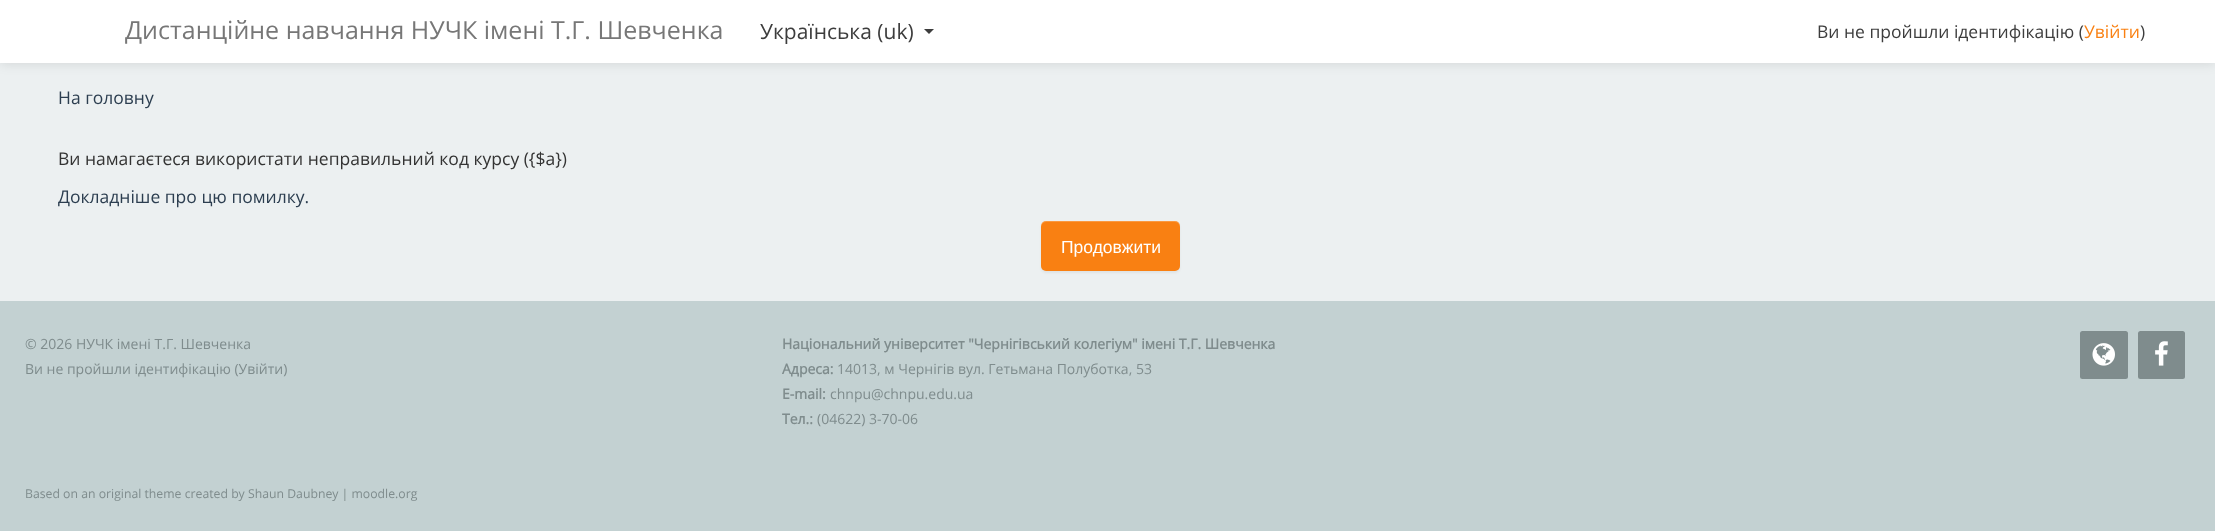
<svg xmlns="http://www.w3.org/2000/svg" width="2215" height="531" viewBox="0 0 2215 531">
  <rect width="100%" height="100%" fill="#ecf0f1"/>
  <path d="M0 1h2215v63H0z" fill="#0000001a" filter="blur(6px)"/>
  <path d="M0 0h2215v63H0z" fill="#fff"/>
  <path d="M924 29H934L929 34Z" fill="#3d3d3d"/>
  <rect x="1041" y="223" width="139" height="50" rx="5" fill="#0000000d" filter="blur(1px)"/>
  <rect x="1041" y="221" width="139" height="50" rx="5" fill="#f98012"/>
  <path d="M1046 222H1175C1178 222 1180 225 1180 228V226C1180 223 1178 221 1175 221H1046C1043 221 1041 223 1041 226V228C1041 225 1043 222 1046 222Z" fill="#ffffff33"/>
  <path d="M0 301h2215v230H0z" fill="#c3d1d2"/>
  <rect x="2080" y="331" width="48" height="48" rx="2.5" fill="#7f8c8d"/>
  <image x="2092" y="343" width="23" height="23" href="img/1.png"/>
  <rect x="2138" y="331" width="47" height="48" rx="2.5" fill="#7f8c8d"/>
  <image x="2155" y="341" width="13" height="25" href="img/2.png"/>
  <text x="125" y="39" font-family="Open Sans" font-size="25" fill="#777">Дистанційне навчання НУЧК імені Т.Г. Шевченка</text>
  <text x="760" y="39" font-family="Open Sans" font-size="21" fill="#3d3d3d">Українська (uk)</text>
  <text x="1817" y="38" font-family="Open Sans" font-size="17.5" fill="#3d3d3d">Ви не пройшли ідентифікацію (</text>
  <text x="2084" y="38" font-family="Open Sans" font-size="17.5" fill="#f98012">Увійти</text>
  <text x="2140" y="38" font-family="Open Sans" font-size="17.5" fill="#3d3d3d">)</text>
  <text x="58" y="104" font-family="Open Sans" font-size="17.5" fill="#2c3e50">На головну</text>
  <text x="58" y="165" font-family="Open Sans" font-size="17.5" fill="#333">Ви намагаєтеся використати неправильний код курсу ({$a})</text>
  <text x="58" y="203" font-family="Open Sans" font-size="17.5" fill="#2c3e50">Докладніше про цю помилку.</text>
  <text x="1061" y="253" font-family="Liberation Sans" font-size="17.5" fill="#fff">Продовжити</text>
  <g font-family="Open Sans" font-size="14" fill="#7f8c8d">
    <text x="25" y="349">© 2026 НУЧК імені Т.Г. Шевченка</text>
    <text x="25" y="374">Ви не пройшли ідентифікацію (Увійти)</text>
  </g>
  <g font-family="Open Sans" font-size="14" font-weight="bold" fill="#7f8c8d">
    <text x="782" y="349">Національний університет "Чернігівський колегіум" імені Т.Г. Шевченка</text>
    <text x="782" y="374">Адреса:</text>
  </g>
  <text x="837" y="374" font-family="Open Sans" font-size="14" fill="#7f8c8d">14013, м Чернігів вул. Гетьмана Полуботка, 53</text>
  <text x="782" y="399" font-family="Open Sans" font-size="14" font-weight="bold" fill="#7f8c8d">E-mail:</text>
  <text x="830" y="399" font-family="Open Sans" font-size="14" fill="#7f8c8d">chnpu@chnpu.edu.ua</text>
  <text x="782" y="424" font-family="Open Sans" font-size="14" font-weight="bold" fill="#7f8c8d">Тел.:</text>
  <text x="817" y="424" font-family="Open Sans" font-size="14" fill="#7f8c8d">(04622) 3-70-06</text>
  <text x="25" y="498" font-family="Open Sans" font-size="12.25" fill="#7f8c8d">Based on an original theme created by Shaun Daubney | moodle.org</text>
</svg>
